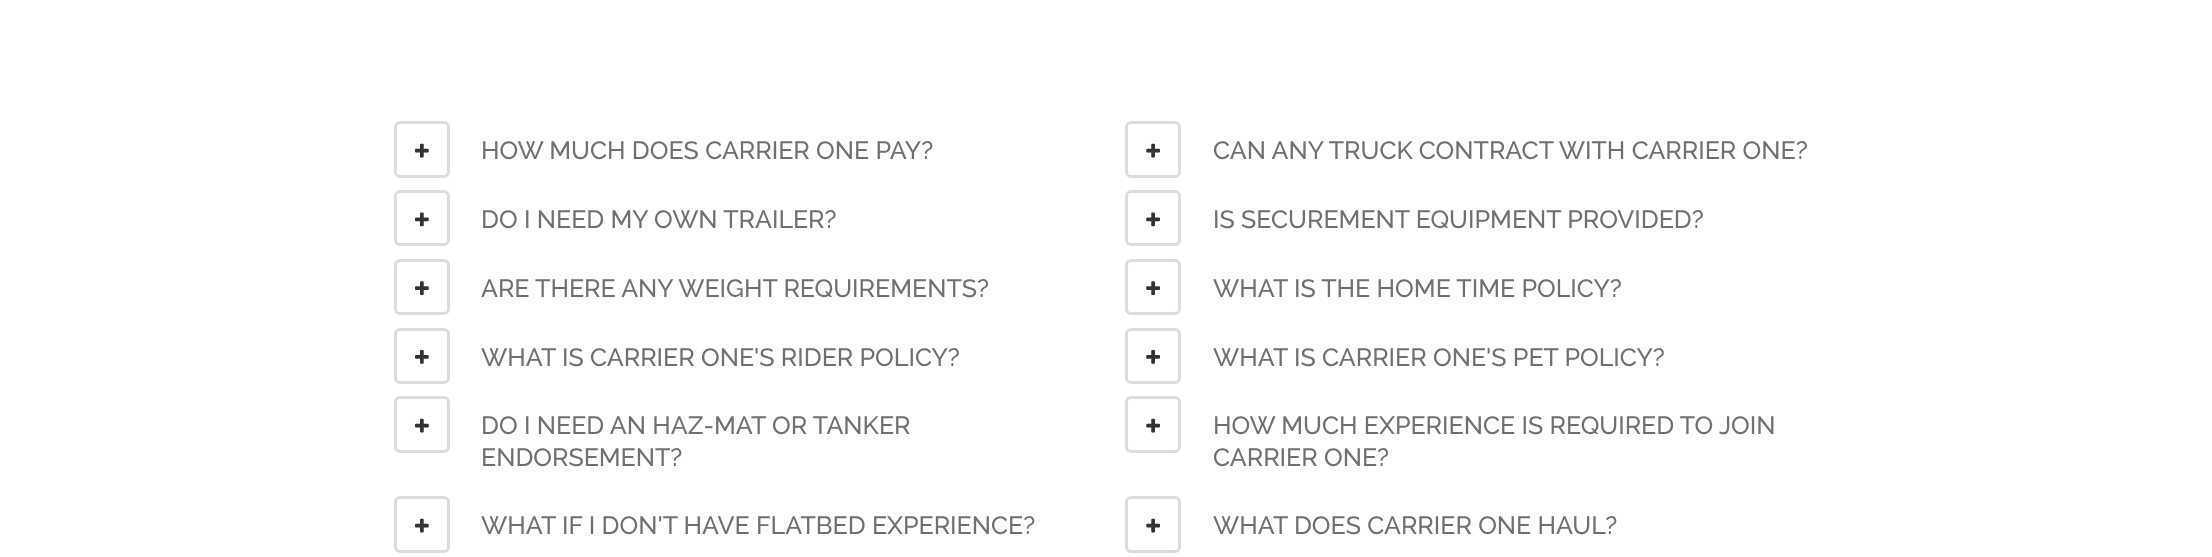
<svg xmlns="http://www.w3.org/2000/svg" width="2212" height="557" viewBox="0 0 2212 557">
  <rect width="100%" height="100%" fill="#fff"/>
  <rect x="395.5" y="122.5" width="53" height="54" rx="4.5" fill="none" stroke="#dddcdc" stroke-width="3"/>
  <image x="415" y="143" width="14" height="15" href="img/1.png"/>
  <rect x="395.5" y="191.5" width="53" height="53" rx="4.5" fill="none" stroke="#dddcdc" stroke-width="3"/>
  <image x="415" y="212" width="14" height="15" href="img/2.png"/>
  <rect x="395.5" y="260.5" width="53" height="53" rx="4.5" fill="none" stroke="#dddcdc" stroke-width="3"/>
  <image x="415" y="281" width="14" height="14" href="img/3.png"/>
  <rect x="395.5" y="329.5" width="53" height="53" rx="4.5" fill="none" stroke="#dddcdc" stroke-width="3"/>
  <image x="415" y="350" width="14" height="14" href="img/4.png"/>
  <rect x="395.5" y="397.5" width="53" height="54" rx="4.5" fill="none" stroke="#dddcdc" stroke-width="3"/>
  <image x="415" y="418" width="14" height="15" href="img/1.png"/>
  <rect x="395.5" y="497.5" width="53" height="54" rx="4.5" fill="none" stroke="#dddcdc" stroke-width="3"/>
  <image x="415" y="518" width="14" height="15" href="img/1.png"/>
  <rect x="1126.5" y="122.5" width="53" height="54" rx="4.5" fill="none" stroke="#dddcdc" stroke-width="3"/>
  <image x="1146" y="143" width="14" height="15" href="img/5.png"/>
  <rect x="1126.5" y="191.5" width="53" height="53" rx="4.5" fill="none" stroke="#dddcdc" stroke-width="3"/>
  <image x="1146" y="212" width="14" height="15" href="img/6.png"/>
  <rect x="1126.5" y="260.5" width="53" height="53" rx="4.5" fill="none" stroke="#dddcdc" stroke-width="3"/>
  <image x="1146" y="281" width="14" height="14" href="img/7.png"/>
  <rect x="1126.5" y="329.5" width="53" height="53" rx="4.5" fill="none" stroke="#dddcdc" stroke-width="3"/>
  <image x="1146" y="350" width="14" height="14" href="img/8.png"/>
  <rect x="1126.5" y="397.5" width="53" height="54" rx="4.5" fill="none" stroke="#dddcdc" stroke-width="3"/>
  <image x="1146" y="418" width="14" height="15" href="img/5.png"/>
  <rect x="1126.5" y="497.5" width="53" height="54" rx="4.5" fill="none" stroke="#dddcdc" stroke-width="3"/>
  <image x="1146" y="518" width="14" height="15" href="img/5.png"/>
  <g font-family="Raleway" font-size="25" font-weight="500" fill="#707070">
    <text x="481" y="159">HOW MUCH DOES CARRIER ONE PAY?</text>
    <text x="481" y="228">DO I NEED MY OWN TRAILER?</text>
    <text x="481" y="297">ARE THERE ANY WEIGHT REQUIREMENTS?</text>
    <text x="481" y="366">WHAT IS CARRIER ONE'S RIDER POLICY?</text>
    <text x="481" y="434">DO I NEED AN HAZ-MAT OR TANKER</text>
    <text x="481" y="466">ENDORSEMENT?</text>
    <text x="481" y="534">WHAT IF I DON'T HAVE FLATBED EXPERIENCE?</text>
    <text x="1213" y="159">CAN ANY TRUCK CONTRACT WITH CARRIER ONE?</text>
    <text x="1213" y="228">IS SECUREMENT EQUIPMENT PROVIDED?</text>
    <text x="1213" y="297">WHAT IS THE HOME TIME POLICY?</text>
    <text x="1213" y="366">WHAT IS CARRIER ONE'S PET POLICY?</text>
    <text x="1213" y="434">HOW MUCH EXPERIENCE IS REQUIRED TO JOIN</text>
    <text x="1213" y="466">CARRIER ONE?</text>
    <text x="1213" y="534">WHAT DOES CARRIER ONE HAUL?</text>
  </g>
</svg>
